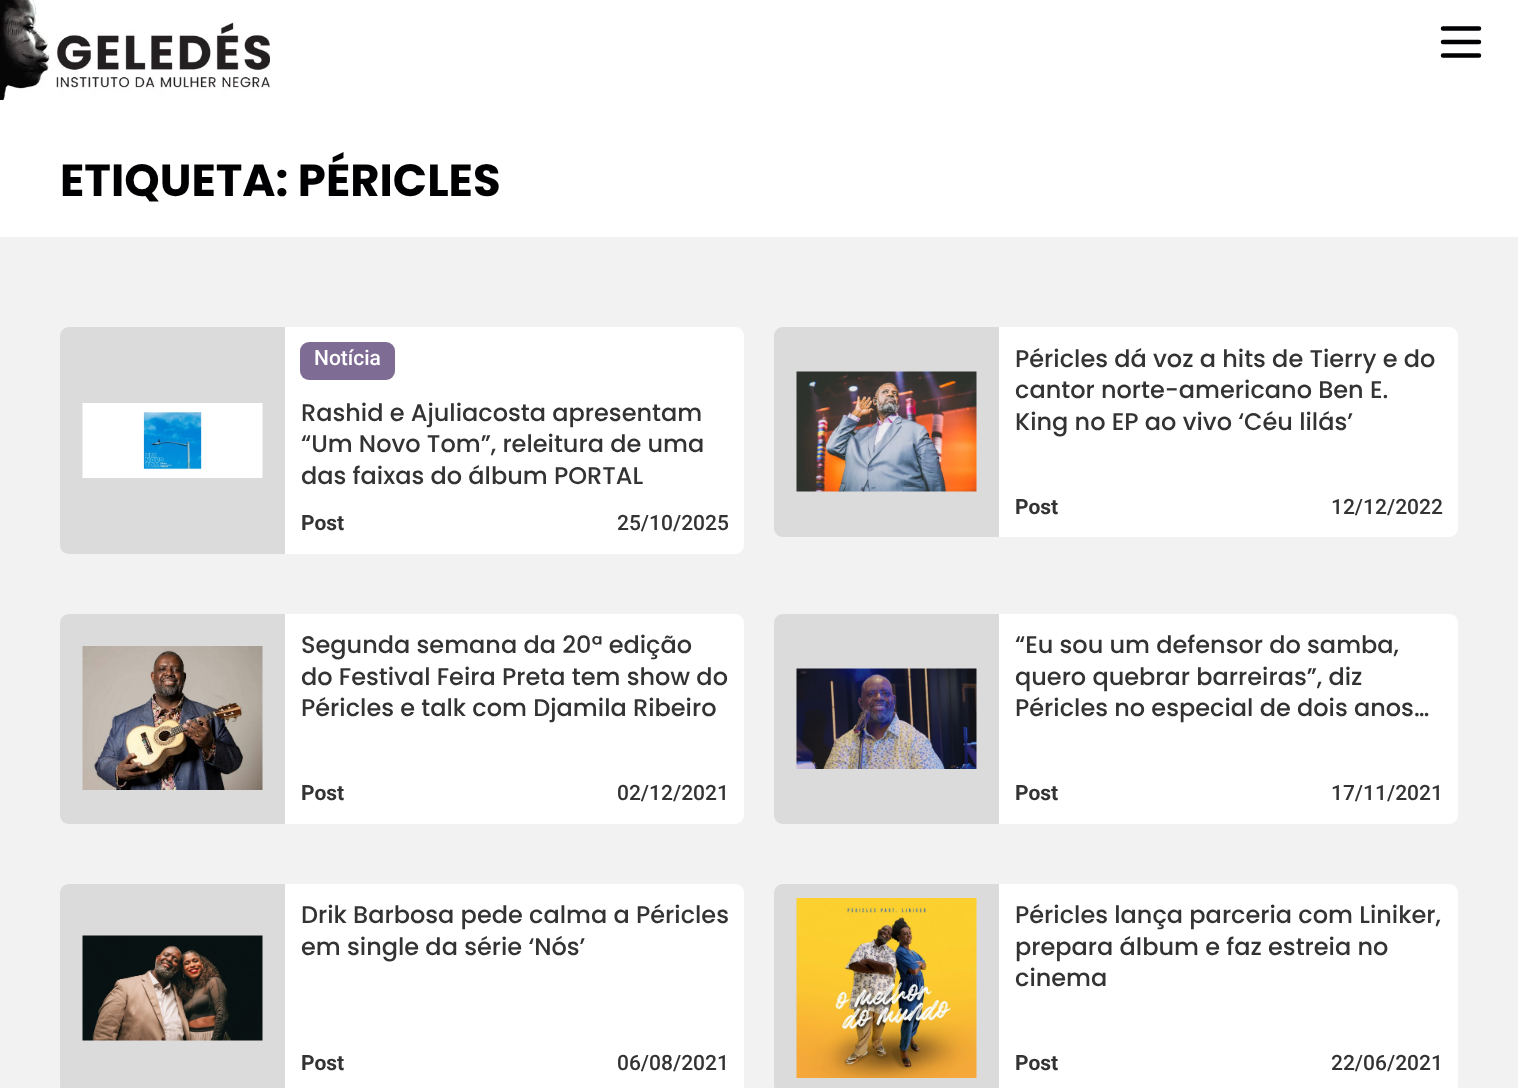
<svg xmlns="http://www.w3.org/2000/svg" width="1518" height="1088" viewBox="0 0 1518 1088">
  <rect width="100%" height="100%" fill="#f2f2f2"/>
  <path d="M0 0h1518v237H0z" fill="#fff"/>
  <image x="0" y="0" width="270" height="100" href="img/1.png"/>
  <path d="M1443 42H1479M1443 28.5H1479M1443 55.5H1479" fill="none" stroke="#000003" stroke-width="4.5" stroke-linecap="round" stroke-linejoin="round"/>
  <path d="M69 327H285V554H69C64 554 60 550 60 545V336C60 331 64 327 69 327Z" fill="#dbdbdb"/>
  <image x="82" y="403" width="181" height="75" href="img/2.png"/>
  <path d="M285 327H735C740 327 744 331 744 336V545C744 550 740 554 735 554H285Z" fill="#fff"/>
  <rect x="300" y="342" width="95" height="38" rx="9" fill="#7f6c95"/>
  <path d="M783 327H999V537H783C778 537 774 533 774 528V336C774 331 778 327 783 327Z" fill="#dbdbdb"/>
  <image x="796" y="371" width="181" height="121" href="img/3.png"/>
  <path d="M999 327H1449C1454 327 1458 331 1458 336V528C1458 533 1454 537 1449 537H999Z" fill="#fff"/>
  <path d="M69 614H285V824H69C64 824 60 820 60 815V623C60 618 64 614 69 614Z" fill="#dbdbdb"/>
  <image x="82" y="646" width="181" height="144" href="img/4.png"/>
  <path d="M285 614H735C740 614 744 618 744 623V815C744 820 740 824 735 824H285Z" fill="#fff"/>
  <path d="M783 614H999V824H783C778 824 774 820 774 815V623C774 618 778 614 783 614Z" fill="#dbdbdb"/>
  <image x="796" y="668" width="181" height="101" href="img/5.png"/>
  <path d="M999 614H1449C1454 614 1458 618 1458 623V815C1458 820 1454 824 1449 824H999Z" fill="#fff"/>
  <path d="M69 884H285V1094H69C64 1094 60 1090 60 1085V893C60 888 64 884 69 884Z" fill="#dbdbdb"/>
  <image x="82" y="935" width="181" height="106" href="img/6.png"/>
  <path d="M285 884H735C740 884 744 888 744 893V1085C744 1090 740 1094 735 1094H285Z" fill="#fff"/>
  <path d="M783 884H999V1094H783C778 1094 774 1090 774 1085V893C774 888 778 884 783 884Z" fill="#dbdbdb"/>
  <image x="796" y="898" width="181" height="180" href="img/7.png"/>
  <path d="M999 884H1449C1454 884 1458 888 1458 893V1085C1458 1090 1454 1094 1449 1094H999Z" fill="#fff"/>
  <text x="60" y="196" font-family="Poppins" font-size="45" font-weight="bold" fill="#000003">ETIQUETA: PÉRICLES</text>
  <text x="314" y="365" font-family="Roboto" font-size="21" font-weight="500" fill="#fff">Notícia</text>
  <g font-family="Poppins" font-size="24" font-weight="500" fill="#333">
    <text x="301" y="421">Rashid e Ajuliacosta apresentam</text>
    <text x="301" y="452">“Um Novo Tom”, releitura de uma</text>
    <text x="301" y="484">das faixas do álbum PORTAL</text>
  </g>
  <text x="301" y="530" font-family="Roboto" font-size="21" font-weight="bold" fill="#333">Post</text>
  <text x="617" y="530" font-family="Roboto" font-size="21" font-weight="500" fill="#333">25/10/2025</text>
  <g font-family="Poppins" font-size="24" font-weight="500" fill="#333">
    <text x="1015" y="367">Péricles dá voz a hits de Tierry e do</text>
    <text x="1015" y="398">cantor norte-americano Ben E.</text>
    <text x="1015" y="430">King no EP ao vivo ‘Céu lilás’</text>
  </g>
  <text x="1015" y="514" font-family="Roboto" font-size="21" font-weight="bold" fill="#333">Post</text>
  <text x="1331" y="514" font-family="Roboto" font-size="21" font-weight="500" fill="#333">12/12/2022</text>
  <g font-family="Poppins" font-size="24" font-weight="500" fill="#333">
    <text x="301" y="653">Segunda semana da 20ª edição</text>
    <text x="301" y="685">do Festival Feira Preta tem show do</text>
    <text x="301" y="716">Péricles e talk com Djamila Ribeiro</text>
  </g>
  <text x="301" y="800" font-family="Roboto" font-size="21" font-weight="bold" fill="#333">Post</text>
  <text x="617" y="800" font-family="Roboto" font-size="21" font-weight="500" fill="#333">02/12/2021</text>
  <g font-family="Poppins" font-size="24" font-weight="500" fill="#333">
    <text x="1015" y="653">“Eu sou um defensor do samba,</text>
    <text x="1015" y="685">quero quebrar barreiras”, diz</text>
    <text x="1015" y="716">Péricles no especial de dois anos…</text>
  </g>
  <text x="1015" y="800" font-family="Roboto" font-size="21" font-weight="bold" fill="#333">Post</text>
  <text x="1331" y="800" font-family="Roboto" font-size="21" font-weight="500" fill="#333">17/11/2021</text>
  <g font-family="Poppins" font-size="24" font-weight="500" fill="#333">
    <text x="301" y="923">Drik Barbosa pede calma a Péricles</text>
    <text x="301" y="955">em single da série ‘Nós’</text>
  </g>
  <text x="301" y="1070" font-family="Roboto" font-size="21" font-weight="bold" fill="#333">Post</text>
  <text x="617" y="1070" font-family="Roboto" font-size="21" font-weight="500" fill="#333">06/08/2021</text>
  <g font-family="Poppins" font-size="24" font-weight="500" fill="#333">
    <text x="1015" y="923">Péricles lança parceria com Liniker,</text>
    <text x="1015" y="955">prepara álbum e faz estreia no</text>
    <text x="1015" y="986">cinema</text>
  </g>
  <text x="1015" y="1070" font-family="Roboto" font-size="21" font-weight="bold" fill="#333">Post</text>
  <text x="1331" y="1070" font-family="Roboto" font-size="21" font-weight="500" fill="#333">22/06/2021</text>
</svg>
